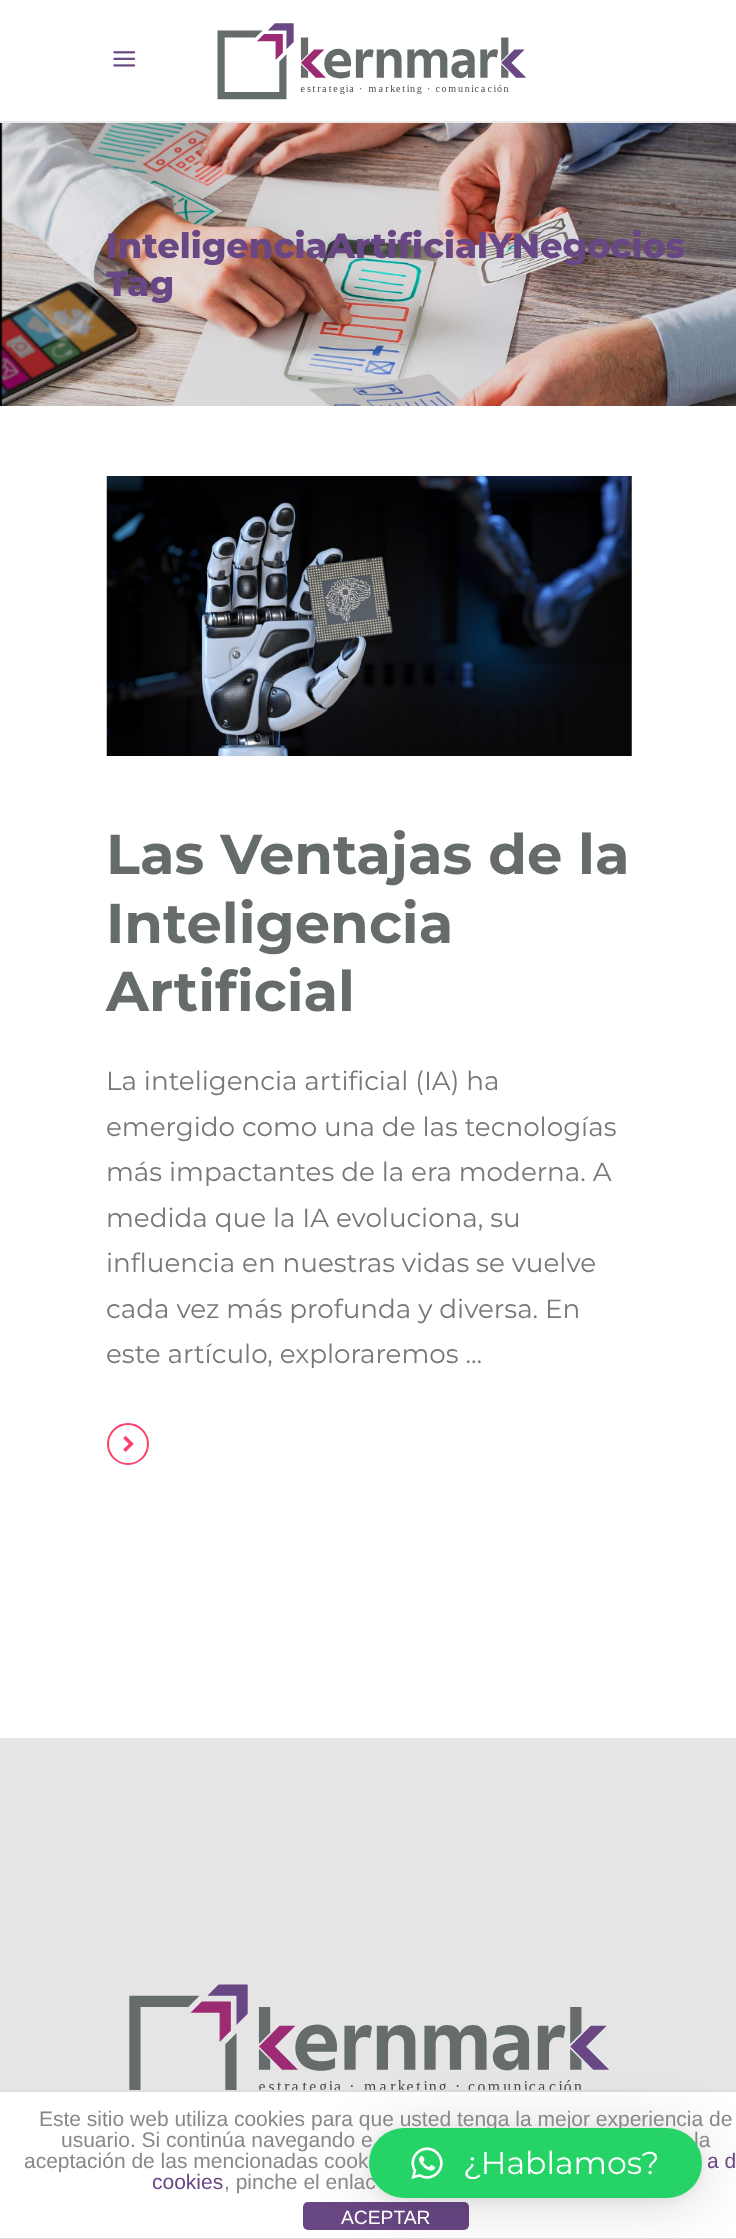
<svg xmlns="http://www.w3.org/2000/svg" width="736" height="2239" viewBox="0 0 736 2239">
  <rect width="100%" height="100%" fill="#fff"/>
  <path d="M0 121h736v2H0z" fill="#ebebeb"/>
  <image x="113" y="51" width="23" height="16" href="img/1.png"/>
  <image x="217" y="23" width="309" height="77" href="img/2.png"/>
  <image x="0" y="123" width="736" height="283" href="img/3.png"/>
  <image x="106" y="476" width="526" height="280" href="img/4.png"/>
  <circle cx="128" cy="1444" r="20" fill="none" stroke="#fe3e6b" stroke-width="2"/>
  <image x="123" y="1436" width="11" height="16" href="img/5.png"/>
  <path d="M0 1738h736v352H0z" fill="#e5e5e5"/>
  <image x="129" y="1984" width="480" height="106" href="img/6.png"/>
  <path d="M0 2090h736v2H0z" fill="#ddd"/>
  <path d="M0 2238h736v1H0z" fill="#ddd"/>
  <rect x="303" y="2202" width="166" height="28" rx="5" fill="#684784"/>
  <rect x="369" y="2132" width="333" height="70" rx="35" fill="#00000029" filter="blur(28px)"/>
  <rect x="369" y="2130" width="333" height="70" rx="35" fill="#0000000f" filter="blur(5px)"/>
  <g font-family="Montserrat" font-size="35" font-weight="800" fill="#684784">
    <text x="106" y="258">InteligenciaArtificialYNegocios</text>
    <text x="106" y="296">Tag</text>
  </g>
  <g font-family="Montserrat" font-size="56" font-weight="bold" fill="#666b6b">
    <text x="106" y="874">Las Ventajas de la</text>
    <text x="106" y="943">Inteligencia</text>
    <text x="106" y="1011">Artificial</text>
  </g>
  <g font-family="Montserrat" font-size="26.25" fill="#777">
    <text x="106" y="1090">La inteligencia artificial (IA) ha</text>
    <text x="106" y="1136">emergido como una de las tecnologías</text>
    <text x="106" y="1181">más impactantes de la era moderna. A</text>
    <text x="106" y="1227">medida que la IA evoluciona, su</text>
    <text x="106" y="1272">influencia en nuestras vidas se vuelve</text>
    <text x="106" y="1318">cada vez más profunda y diversa. En</text>
    <text x="106" y="1363">este artículo, exploraremos ...</text>
  </g>
  <g font-family="Liberation Sans" font-size="21" fill="#888">
    <text x="39" y="2126">Este sitio web utiliza cookies para que usted tenga la mejor experiencia de</text>
    <text x="61" y="2147">usuario. Si continúa navegando e</text>
    <text x="694" y="2147">la</text>
    <text x="24" y="2168">aceptación de las mencionadas cook</text>
  </g>
  <g font-family="Liberation Sans" font-size="21" fill="#684784">
    <text x="707" y="2168">a d</text>
    <text x="152" y="2189">cookies</text>
  </g>
  <text x="224" y="2189" font-family="Liberation Sans" font-size="21" fill="#888">, pinche el enlac</text>
  <text x="341" y="2224" font-family="Liberation Sans" font-size="19.25" fill="#fff">ACEPTAR</text>
  <rect x="369" y="2128" width="333" height="70" rx="35" fill="#25d366"/>
  <image x="411" y="2147" width="32" height="32" href="img/7.png"/>
  <text x="463" y="2174" font-family="Montserrat" font-size="31.5" fill="#fff">¿Hablamos?</text>
</svg>
